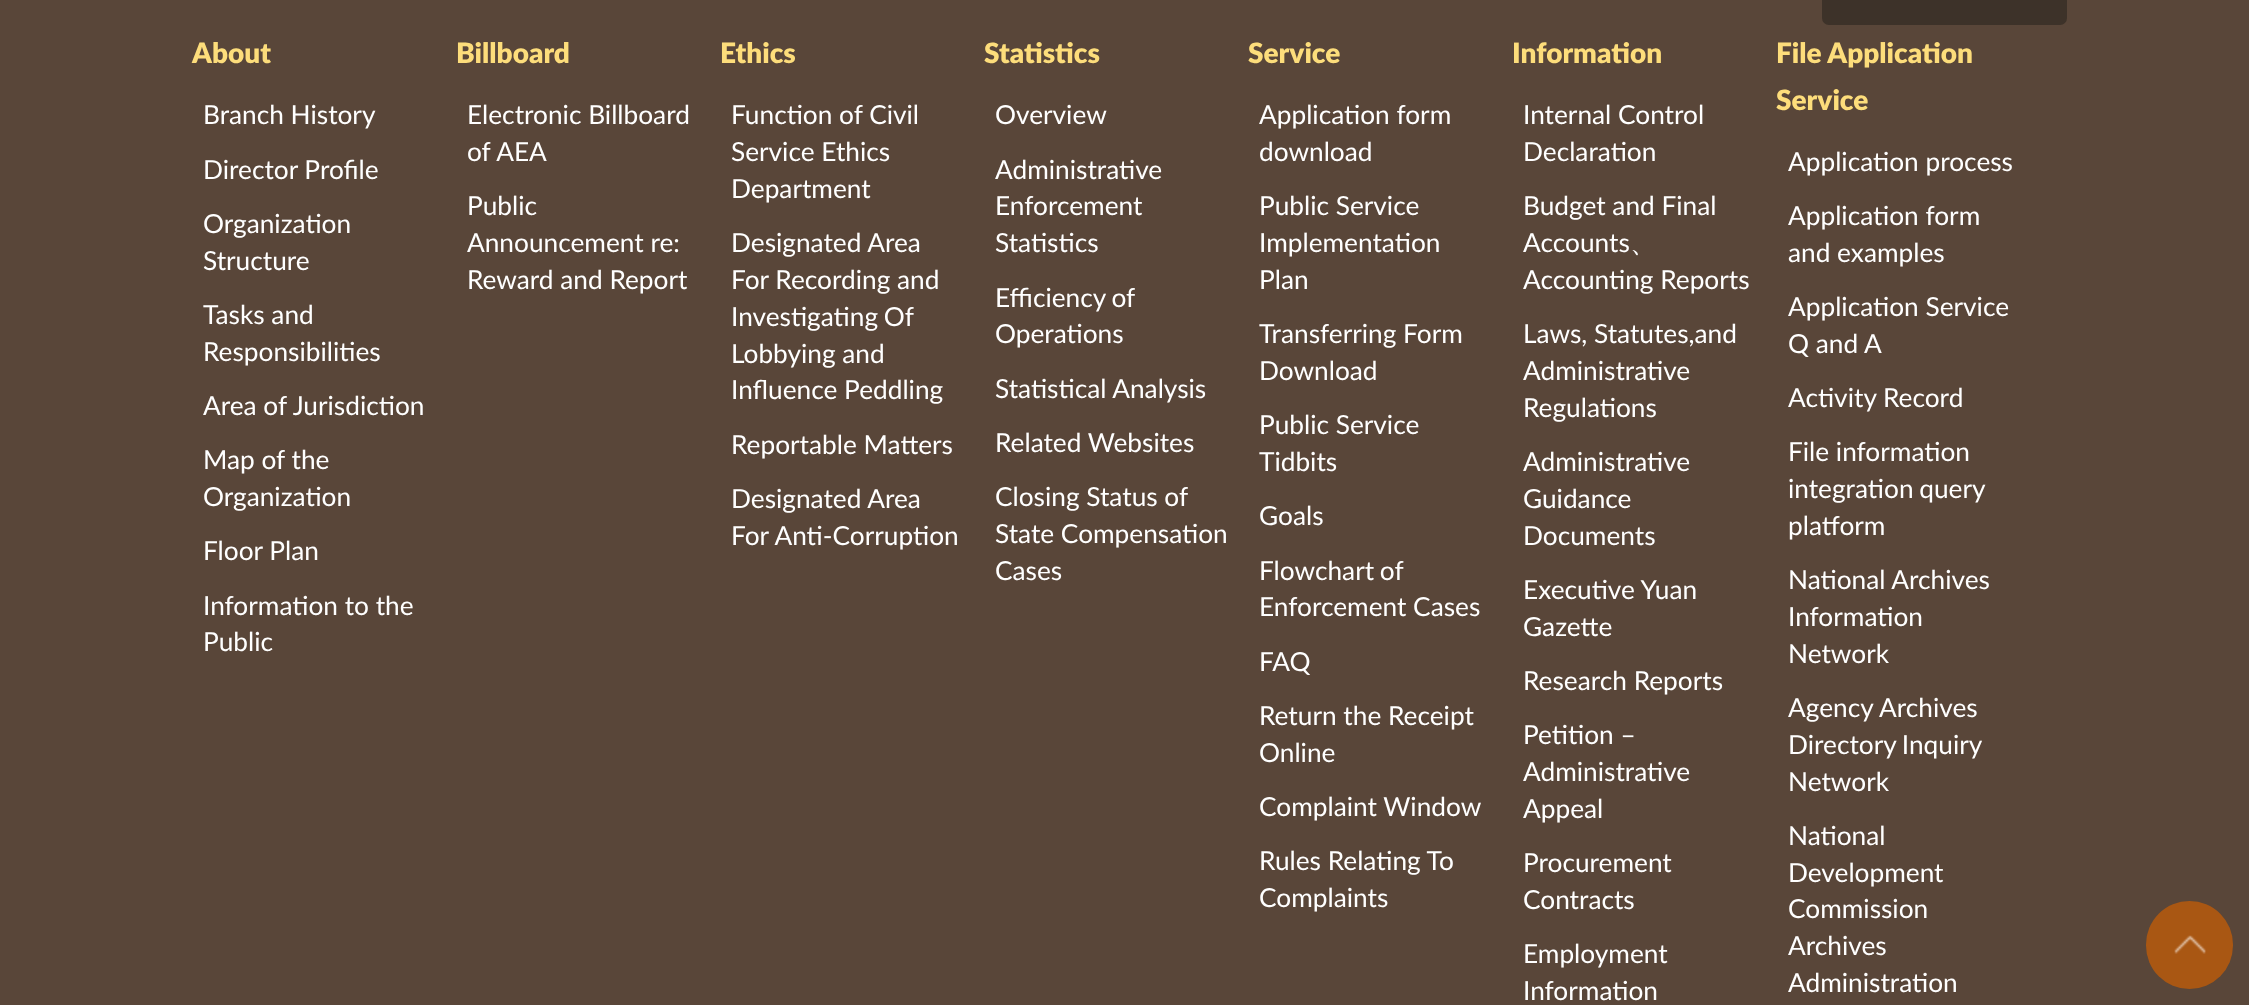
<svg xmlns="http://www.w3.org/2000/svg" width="2249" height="1005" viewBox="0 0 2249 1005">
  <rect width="100%" height="100%" fill="#594639"/>
  <rect x="1822" y="-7" width="245" height="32" rx="7" fill="#3d3229"/>
  <rect x="2146" y="901" width="87" height="88" rx="43.5" fill="#a95713"/>
  <image x="2174" y="935" width="32" height="19" href="img/1.png"/>
  <text x="192" y="63" font-family="Lato" font-size="28" font-weight="800" fill="#fddd7b">About</text>
  <g font-family="Lato" font-size="26.25" fill="#fff">
    <text x="203" y="124">Branch History</text>
    <text x="203" y="179">Director Profile</text>
    <text x="203" y="233">Organization</text>
    <text x="203" y="270">Structure</text>
    <text x="203" y="324">Tasks and</text>
    <text x="203" y="361">Responsibilities</text>
    <text x="203" y="415">Area of Jurisdiction</text>
    <text x="203" y="469">Map of the</text>
    <text x="203" y="506">Organization</text>
    <text x="203" y="560">Floor Plan</text>
    <text x="203" y="615">Information to the</text>
    <text x="203" y="651">Public</text>
  </g>
  <text x="456" y="63" font-family="Lato" font-size="28" font-weight="800" fill="#fddd7b">Billboard</text>
  <g font-family="Lato" font-size="26.25" fill="#fff">
    <text x="467" y="124">Electronic Billboard</text>
    <text x="467" y="161">of AEA</text>
    <text x="467" y="215">Public</text>
    <text x="467" y="252">Announcement re:</text>
    <text x="467" y="289">Reward and Report</text>
  </g>
  <text x="720" y="63" font-family="Lato" font-size="28" font-weight="800" fill="#fddd7b">Ethics</text>
  <g font-family="Lato" font-size="26.25" fill="#fff">
    <text x="731" y="124">Function of Civil</text>
    <text x="731" y="161">Service Ethics</text>
    <text x="731" y="198">Department</text>
    <text x="731" y="252">Designated Area</text>
    <text x="731" y="289">For Recording and</text>
    <text x="731" y="326" word-spacing="-1">Investigating Of</text>
    <text x="731" y="363">Lobbying and</text>
    <text x="731" y="399">Influence Peddling</text>
    <text x="731" y="454">Reportable Matters</text>
    <text x="731" y="508">Designated Area</text>
    <text x="731" y="545">For Anti-Corruption</text>
  </g>
  <text x="984" y="63" font-family="Lato" font-size="28" font-weight="800" fill="#fddd7b">Statistics</text>
  <g font-family="Lato" font-size="26.25" fill="#fff">
    <text x="995" y="124">Overview</text>
    <text x="995" y="179">Administrative</text>
    <text x="995" y="215">Enforcement</text>
    <text x="995" y="252">Statistics</text>
    <text x="995" y="307" word-spacing="-1">Efficiency of</text>
    <text x="995" y="343">Operations</text>
    <text x="995" y="398">Statistical Analysis</text>
    <text x="995" y="452">Related Websites</text>
    <text x="995" y="506">Closing Status of</text>
    <text x="995" y="543">State Compensation</text>
    <text x="995" y="580">Cases</text>
  </g>
  <text x="1248" y="63" font-family="Lato" font-size="28" font-weight="800" fill="#fddd7b">Service</text>
  <g font-family="Lato" font-size="26.25" fill="#fff">
    <text x="1259" y="124">Application form</text>
    <text x="1259" y="161">download</text>
    <text x="1259" y="215">Public Service</text>
    <text x="1259" y="252">Implementation</text>
    <text x="1259" y="289">Plan</text>
    <text x="1259" y="343">Transferring Form</text>
    <text x="1259" y="380">Download</text>
    <text x="1259" y="434">Public Service</text>
    <text x="1259" y="471">Tidbits</text>
    <text x="1259" y="525">Goals</text>
    <text x="1259" y="580" word-spacing="-1">Flowchart of</text>
    <text x="1259" y="616">Enforcement Cases</text>
    <text x="1259" y="671">FAQ</text>
    <text x="1259" y="725">Return the Receipt</text>
    <text x="1259" y="762">Online</text>
    <text x="1259" y="816">Complaint Window</text>
    <text x="1259" y="870">Rules Relating To</text>
    <text x="1259" y="907">Complaints</text>
  </g>
  <text x="1512" y="63" font-family="Lato" font-size="28" font-weight="800" fill="#fddd7b">Information</text>
  <g font-family="Lato" font-size="26.25" fill="#fff">
    <text x="1523" y="124">Internal Control</text>
    <text x="1523" y="161">Declaration</text>
    <text x="1523" y="215">Budget and Final</text>
    <text x="1523" y="252">Accounts</text>
  </g>
  <text x="1630" y="252" font-family="WenQuanYi Zen Hei" font-size="26.25" font-weight="500" fill="#fff">、</text>
  <g font-family="Lato" font-size="26.25" fill="#fff">
    <text x="1523" y="289">Accounting Reports</text>
    <text x="1523" y="343">Laws, Statutes,and</text>
    <text x="1523" y="380">Administrative</text>
    <text x="1523" y="417">Regulations</text>
    <text x="1523" y="471">Administrative</text>
    <text x="1523" y="508">Guidance</text>
    <text x="1523" y="545">Documents</text>
    <text x="1523" y="599">Executive Yuan</text>
    <text x="1523" y="636">Gazette</text>
    <text x="1523" y="690">Research Reports</text>
    <text x="1523" y="744">Petition –</text>
    <text x="1523" y="781">Administrative</text>
    <text x="1523" y="818">Appeal</text>
    <text x="1523" y="872">Procurement</text>
    <text x="1523" y="909">Contracts</text>
    <text x="1523" y="963">Employment</text>
    <text x="1523" y="1000">Information</text>
  </g>
  <g font-family="Lato" font-size="28" font-weight="800" fill="#fddd7b">
    <text x="1776" y="63">File Application</text>
    <text x="1776" y="110">Service</text>
  </g>
  <g font-family="Lato" font-size="26.25" fill="#fff">
    <text x="1788" y="171">Application process</text>
    <text x="1788" y="225">Application form</text>
    <text x="1788" y="262">and examples</text>
    <text x="1788" y="316">Application Service</text>
    <text x="1788" y="353">Q and A</text>
    <text x="1788" y="407">Activity Record</text>
    <text x="1788" y="461">File information</text>
    <text x="1788" y="498" word-spacing="-1">integration query</text>
    <text x="1788" y="535">platform</text>
    <text x="1788" y="589">National Archives</text>
    <text x="1788" y="626">Information</text>
    <text x="1788" y="663">Network</text>
    <text x="1788" y="717">Agency Archives</text>
    <text x="1788" y="754" word-spacing="-1">Directory Inquiry</text>
    <text x="1788" y="791">Network</text>
    <text x="1788" y="845">National</text>
    <text x="1788" y="882">Development</text>
    <text x="1788" y="918">Commission</text>
    <text x="1788" y="955">Archives</text>
    <text x="1788" y="992">Administration</text>
  </g>
</svg>
